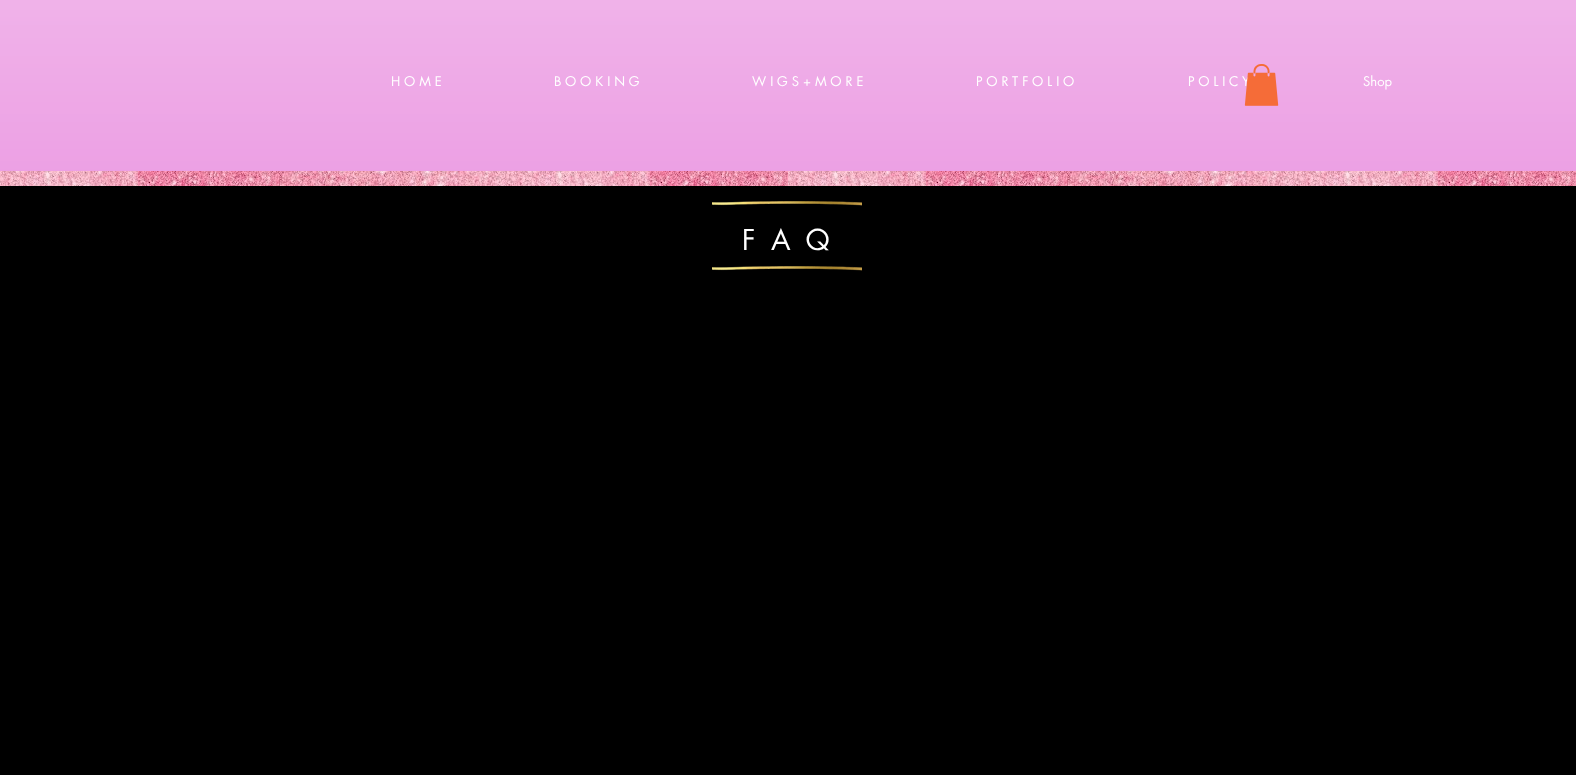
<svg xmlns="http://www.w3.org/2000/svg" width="1576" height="775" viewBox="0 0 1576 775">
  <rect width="100%" height="100%" fill="#000"/>
  <path d="M0 0h1576v171H0z" fill="#eb98e2"/>
  <image x="0" y="0" width="1576" height="171" href="img/1.png"/>
  <image x="0" y="171" width="788" height="15" href="img/3.png"/>
  <image x="788" y="171" width="788" height="15" href="img/3.png"/>
  <image x="712" y="201" width="150" height="5" href="img/4.png"/>
  <image x="712" y="266" width="150" height="5" href="img/4.png"/>
  <g font-family="futura" font-size="13" fill="#fff">
    <text x="391" y="86">H O M E</text>
    <text x="554" y="86">B O O K I N G</text>
    <text x="752" y="86">W I G S + M O R E</text>
    <text x="976" y="86">P O R T F O L I O</text>
    <text x="1188" y="86">P O L I C Y</text>
  </g>
  <image x="1244" y="64" width="35" height="42" href="img/2.png"/>
  <text x="1363" y="86" font-family="futura" font-size="13" fill="#fff">Shop</text>
  <text x="742" y="250" font-family="futura" font-size="28" letter-spacing="3.5" fill="#fff">F A Q</text>
</svg>
